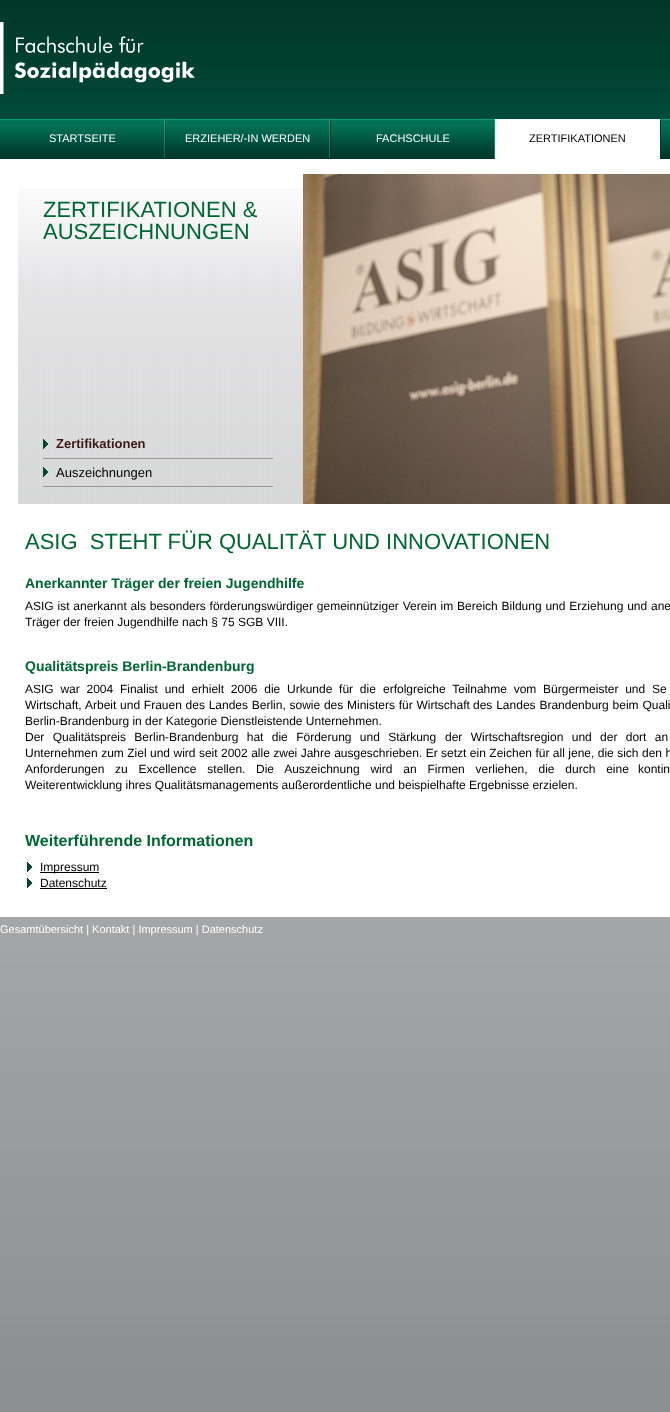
<svg xmlns="http://www.w3.org/2000/svg" width="670" height="1412" viewBox="0 0 670 1412">
  <rect width="100%" height="100%" fill="#fff"/>
  <image x="0" y="0" width="670" height="1412" href="img/1.png"/>
  <image x="0" y="22" width="195" height="72" href="img/2.png"/>
  <image x="0" y="119" width="670" height="55" href="img/3.png"/>
  <path d="M495 119h165v40H495z" fill="#fff"/>
  <path d="M0 174h303v330H0z" fill="#fff"/>
  <image x="18" y="188" width="285" height="316" href="img/4.png"/>
  <image x="43" y="439" width="5" height="10" href="img/5.png"/>
  <path d="M43 458h230v1H43z" fill="#939496"/>
  <image x="43" y="467" width="5" height="10" href="img/6.png"/>
  <path d="M43 486h230v1H43z" fill="#939496"/>
  <image x="303" y="174" width="367" height="330" href="img/7.png"/>
  <path d="M0 504h670v413H0z" fill="#fff"/>
  <image x="27" y="862" width="5" height="10" href="img/8.png"/>
  <path d="M40 872h59v1H40z" fill="#000"/>
  <image x="27" y="878" width="5" height="10" href="img/8.png"/>
  <path d="M40 888h67v1H40z" fill="#000"/>
  <g font-family="Liberation Sans" font-size="11" fill="#fff">
    <text x="49" y="142">STARTSEITE</text>
    <text x="185" y="142">ERZIEHER/-IN WERDEN</text>
    <text x="376" y="142">FACHSCHULE</text>
  </g>
  <text x="529" y="142" font-family="Liberation Sans" font-size="11" fill="#000">ZERTIFIKATIONEN</text>
  <g font-family="Liberation Sans" font-size="22" fill="#063">
    <text x="43" y="217">ZERTIFIKATIONEN &amp;</text>
    <text x="43" y="239">AUSZEICHNUNGEN</text>
  </g>
  <text x="56" y="448" font-family="Liberation Sans" font-size="13" font-weight="bold" fill="#3d1818">Zertifikationen</text>
  <text x="56" y="477" font-family="Liberation Sans" font-size="13" fill="#000">Auszeichnungen</text>
  <text x="25" y="549" font-family="Liberation Sans" font-size="22" fill="#063" xml:space="preserve">ASIG  STEHT FÜR QUALITÄT UND INNOVATIONEN</text>
  <text x="25" y="588" font-family="Liberation Sans" font-size="14" font-weight="bold" fill="#063">Anerkannter Träger der freien Jugendhilfe</text>
  <g font-family="Liberation Sans" font-size="12" fill="#000">
    <text x="25" y="610" word-spacing="0.5">ASIG ist anerkannt als besonders förderungswürdiger gemeinnütziger Verein im Bereich Bildung und Erziehung und ane</text>
    <text x="25" y="626">Träger der freien Jugendhilfe nach § 75 SGB VIII.</text>
  </g>
  <text x="25" y="671" font-family="Liberation Sans" font-size="14" font-weight="bold" fill="#063">Qualitätspreis Berlin-Brandenburg</text>
  <g font-family="Liberation Sans" font-size="12" fill="#000">
    <text x="25" y="693" word-spacing="3.4">ASIG war 2004 Finalist und erhielt 2006 die Urkunde für die</text>
    <text x="383" y="693" word-spacing="3.4">erfolgreiche Teilnahme vom Bürgermeister und Se</text>
    <text x="25" y="709">Wirtschaft,</text>
    <text x="85" y="709" word-spacing="0.4">Arbeit und Frauen des Landes Berlin, sowie des Ministers für Wirtschaft</text>
    <text x="473" y="709" word-spacing="0.5">des Landes Brandenburg beim Quali</text>
    <text x="25" y="725">Berlin-Brandenburg in der Kategorie Dienstleistende Unternehmen.</text>
    <text x="25" y="741" word-spacing="5">Der Qualitätspreis Berlin-Brandenburg hat die Förderung und Stärkung</text>
    <text x="445" y="741" word-spacing="5">der Wirtschaftsregion und der dort an</text>
    <text x="25" y="757" word-spacing="0.1">Unternehmen zum Ziel und wird seit 2002 alle zwei Jahre ausgeschrieben. Er setzt ein Zeichen für all jene, die sich den h</text>
    <text x="25" y="773">Anforderungen</text>
    <text x="115" y="773" word-spacing="7.5">zu Excellence stellen.</text>
    <text x="256" y="773" word-spacing="7.5">Die Auszeichnung wird an Firmen verliehen, die durch eine</text>
    <text x="638" y="773">kontin</text>
    <text x="25" y="789">Weiterentwicklung ihres Qualitätsmanagements außerordentliche und beispielhafte Ergebnisse erzielen.</text>
  </g>
  <text x="25" y="846" font-family="Liberation Sans" font-size="16" font-weight="bold" fill="#063">Weiterführende Informationen</text>
  <g font-family="Liberation Sans" font-size="12" fill="#000">
    <text x="40" y="871">Impressum</text>
    <text x="40" y="887">Datenschutz</text>
  </g>
  <text x="0" y="933" font-family="Liberation Sans" font-size="11" fill="#fff">Gesamtübersicht | Kontakt | Impressum | Datenschutz</text>
</svg>
